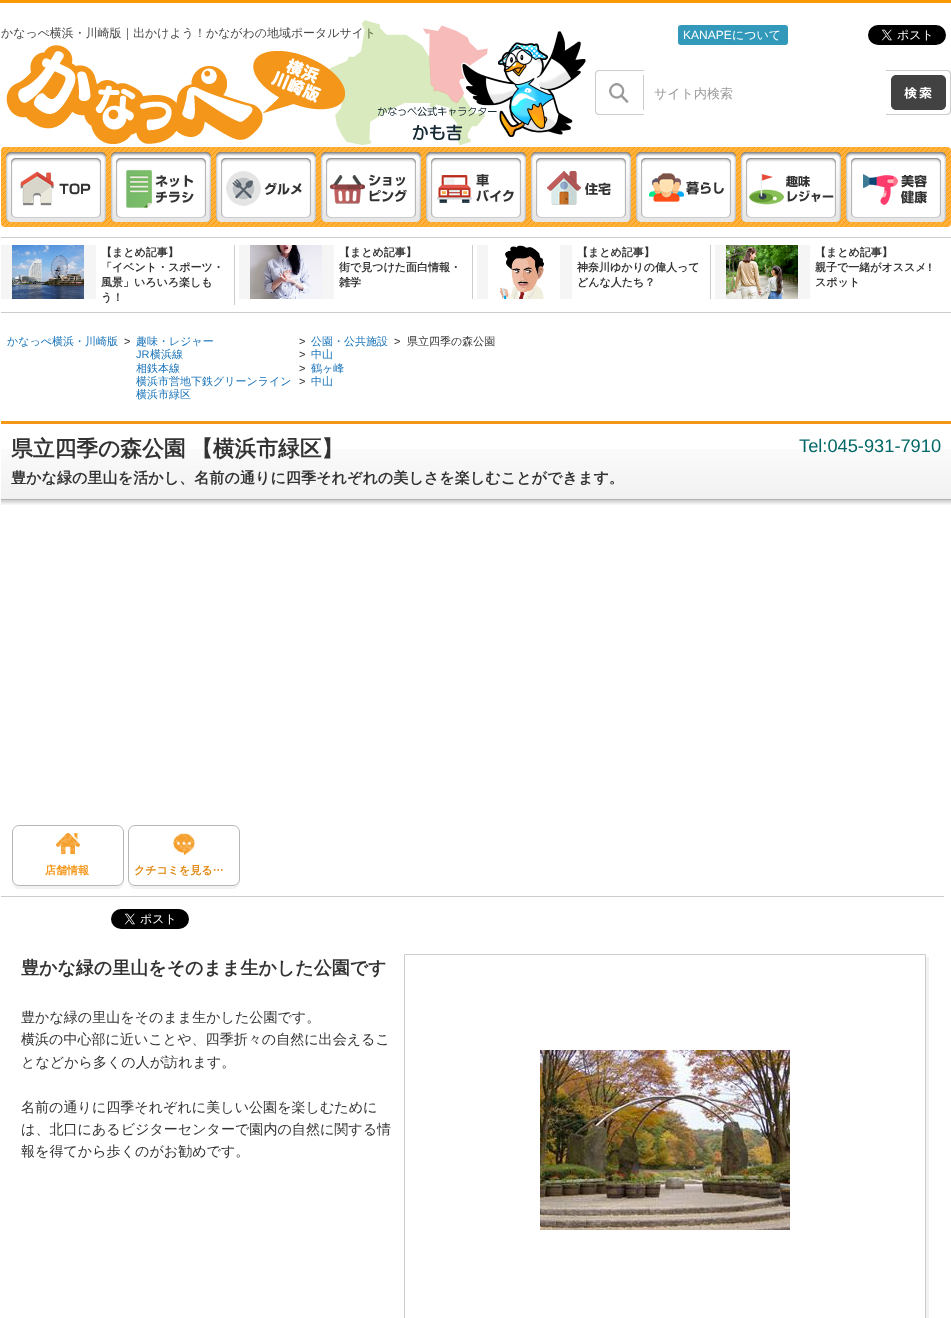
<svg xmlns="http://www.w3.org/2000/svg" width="951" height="1318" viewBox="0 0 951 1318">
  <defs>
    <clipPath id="clip1"><path d="M11 464h930v21H11z"/></clipPath>
    <clipPath id="clip2"><path d="M21 954h910v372H21z"/></clipPath>
  </defs>
  <rect width="100%" height="100%" fill="#fff"/>
  <path d="M0 0h951v3H0z" fill="#f90"/>
  <rect x="678" y="25" width="110" height="20" rx="3" fill="#3299bb"/>
  <image x="868" y="25" width="78" height="20" href="img/1.png"/>
  <image x="595" y="70" width="49" height="45" href="img/4.png"/>
  <image x="886" y="70" width="65" height="45" href="img/5.png"/>
  <rect x="1" y="147" width="950" height="80" rx="4" fill="#f90"/>
  <image x="1" y="147" width="950" height="80" href="img/6.png"/>
  <image x="6" y="152" width="100" height="70" href="img/7.png"/>
  <image x="111" y="152" width="100" height="70" href="img/8.png"/>
  <image x="216" y="152" width="100" height="70" href="img/9.png"/>
  <image x="321" y="152" width="100" height="70" href="img/10.png"/>
  <image x="426" y="152" width="100" height="70" href="img/11.png"/>
  <image x="531" y="152" width="100" height="70" href="img/12.png"/>
  <image x="636" y="152" width="100" height="70" href="img/13.png"/>
  <image x="741" y="152" width="100" height="70" href="img/14.png"/>
  <image x="846" y="152" width="100" height="70" href="img/15.png"/>
  <path d="M1 237h950v1H1z" fill="#ccc"/>
  <path d="M1 312h950v1H1z" fill="#ccc"/>
  <path d="M234 245h1v60H234z" fill="#ccc"/>
  <path d="M1 245h95v54H1z" fill="#f5f5f5"/>
  <image x="12" y="245" width="72" height="54" href="img/16.png"/>
  <path d="M472 245h1v54H472z" fill="#ccc"/>
  <path d="M239 245h95v54H239z" fill="#f5f5f5"/>
  <image x="250" y="245" width="72" height="54" href="img/17.png"/>
  <path d="M710 245h1v54H710z" fill="#ccc"/>
  <path d="M477 245h95v54H477z" fill="#f5f5f5"/>
  <image x="488" y="245" width="72" height="54" href="img/18.png"/>
  <path d="M715 245h95v54H715z" fill="#f5f5f5"/>
  <image x="726" y="245" width="72" height="54" href="img/19.png"/>
  <image x="1" y="449" width="950" height="56" href="img/20.png"/>
  <path d="M1 421h950v3H1z" fill="#f49618"/>
  <path d="M1 896h943v1H1z" fill="#ccc"/>
  <rect x="12" y="828" width="112" height="61" rx="7" fill="#f2f2f2" filter="blur(0.5px)"/>
  <rect x="12.5" y="825.5" width="111" height="60" rx="6.5" fill="#fff" stroke="#b7b7b7"/>
  <image x="56" y="833" width="24" height="21" href="img/21.png"/>
  <rect x="128" y="828" width="112" height="61" rx="7" fill="#f2f2f2" filter="blur(0.5px)"/>
  <rect x="128.5" y="825.5" width="111" height="60" rx="6.5" fill="#fff" stroke="#b7b7b7"/>
  <image x="173" y="833" width="22" height="23" href="img/22.png"/>
  <image x="111" y="909" width="78" height="20" href="img/23.png"/>
  <path d="M407 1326V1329H929V957H926V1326Z" fill="#f2f2f2"/>
  <path d="M404.5 954.5h521v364H404.5z" fill="none" stroke="#ccc"/>
  <image x="540" y="1050" width="250" height="180" href="img/24.png"/>
  <text x="1" y="37" font-family="WenQuanYi Zen Hei" font-size="11.95" font-weight="500" fill="#474747">かなっぺ横浜・川崎版｜出かけよう！かながわの地域ポータルサイト</text>
  <text x="683" y="39" font-family="Liberation Sans" font-size="12" fill="#fff">KANAPE</text>
  <text x="732" y="39" font-family="WenQuanYi Zen Hei" font-size="12" font-weight="500" fill="#fff">について</text>
  <image x="329" y="20" width="257" height="126" href="img/3.png"/>
  <image x="6" y="45" width="340" height="99" href="img/2.png"/>
  <text x="654" y="98" font-family="WenQuanYi Zen Hei" font-size="13" font-weight="500" fill="#999">サイト内検索</text>
  <g font-family="WenQuanYi Zen Hei" font-size="11" font-weight="bold" fill="#333">
    <text x="101" y="256">【まとめ記事】</text>
    <text x="101" y="271">「イベント・スポーツ・</text>
    <text x="101" y="286">風景」いろいろ楽しも</text>
    <text x="101" y="301">う！</text>
    <text x="339" y="256">【まとめ記事】</text>
    <text x="339" y="271">街で見つけた面白情報・</text>
    <text x="339" y="286">雑学</text>
    <text x="577" y="256">【まとめ記事】</text>
    <text x="577" y="271">神奈川ゆかりの偉人って</text>
    <text x="577" y="286">どんな人たち？</text>
    <text x="815" y="256">【まとめ記事】</text>
    <text x="815" y="271">親子で一緒がオススメ</text>
  </g>
  <text x="928" y="271" font-family="Liberation Sans" font-size="11" font-weight="bold" fill="#333">!</text>
  <text x="815" y="286" font-family="WenQuanYi Zen Hei" font-size="11" font-weight="bold" fill="#333">スポット</text>
  <text x="7" y="345" font-family="WenQuanYi Zen Hei" font-size="11" font-weight="500" fill="#1772b8">かなっぺ横浜・川崎版</text>
  <text x="124" y="345" font-family="Liberation Sans" font-size="11" fill="#333">&gt;</text>
  <text x="136" y="345" font-family="WenQuanYi Zen Hei" font-size="11" font-weight="500" fill="#1772b8">趣味・レジャー</text>
  <text x="136" y="358" font-family="Liberation Sans" font-size="11" fill="#1772b8">JR</text>
  <g font-family="WenQuanYi Zen Hei" font-size="11" font-weight="500" fill="#1772b8">
    <text x="150" y="358">横浜線</text>
    <text x="136" y="372">相鉄本線</text>
    <text x="136" y="385">横浜市営地下鉄グリーンライン</text>
    <text x="136" y="398">横浜市緑区</text>
  </g>
  <text x="299" y="345" font-family="Liberation Sans" font-size="11" fill="#333">&gt;</text>
  <text x="311" y="345" font-family="WenQuanYi Zen Hei" font-size="11" font-weight="500" fill="#1772b8">公園・公共施設</text>
  <text x="299" y="358" font-family="Liberation Sans" font-size="11" fill="#333">&gt;</text>
  <text x="311" y="358" font-family="WenQuanYi Zen Hei" font-size="11" font-weight="500" fill="#1772b8">中山</text>
  <text x="299" y="372" font-family="Liberation Sans" font-size="11" fill="#333">&gt;</text>
  <text x="311" y="372" font-family="WenQuanYi Zen Hei" font-size="11" font-weight="500" fill="#1772b8">鶴ヶ峰</text>
  <text x="299" y="385" font-family="Liberation Sans" font-size="11" fill="#333">&gt;</text>
  <text x="311" y="385" font-family="WenQuanYi Zen Hei" font-size="11" font-weight="500" fill="#1772b8">中山</text>
  <text x="394" y="345" font-family="Liberation Sans" font-size="11" fill="#333">&gt;</text>
  <text x="407" y="345" font-family="WenQuanYi Zen Hei" font-size="11" font-weight="500" fill="#333">県立四季の森公園</text>
  <g font-family="WenQuanYi Zen Hei" font-size="21.75" font-weight="bold" fill="#333">
    <text x="11" y="456">県立四季の森公園</text>
    <text x="191" y="456">【横浜市緑区】</text>
  </g>
  <text x="799" y="452" font-family="Liberation Sans" font-size="18.25" fill="#066">Tel:045-931-7910</text>
  <g clip-path="url(#clip1)">
    <text x="11" y="483" font-family="WenQuanYi Zen Hei" font-size="15.1" font-weight="bold" fill="#333">豊かな緑の里山を活かし、名前の通りに四季それぞれの美しさを楽しむことができます。</text>
  </g>
  <text x="45" y="874" font-family="WenQuanYi Zen Hei" font-size="11" font-weight="bold" fill="#f49618">店舗情報</text>
  <text x="134" y="874" font-family="WenQuanYi Zen Hei" font-size="11" font-weight="bold" fill="#df850b">クチコミを見る…</text>
  <text x="21" y="974" font-family="WenQuanYi Zen Hei" font-size="18" font-weight="bold" fill="#333">豊かな緑の里山をそのまま生かした公園です</text>
  <g font-family="WenQuanYi Zen Hei" font-size="14.05" font-weight="500" fill="#333">
    <text x="21" y="1022">豊かな緑の里山をそのまま生かした公園です。</text>
    <text x="21" y="1044">横浜の中心部に近いことや、四季折々の自然に出会えるこ</text>
    <text x="21" y="1067">となどから多くの人が訪れます。</text>
    <text x="21" y="1112">名前の通りに四季それぞれに美しい公園を楽しむために</text>
    <text x="21" y="1134">は、北口にあるビジターセンターで園内の自然に関する情</text>
  </g>
  <g clip-path="url(#clip2)">
    <text x="21" y="1156" font-family="WenQuanYi Zen Hei" font-size="14.05" font-weight="500" fill="#333">報を得てから歩くのがお勧めです。</text>
  </g>
</svg>
